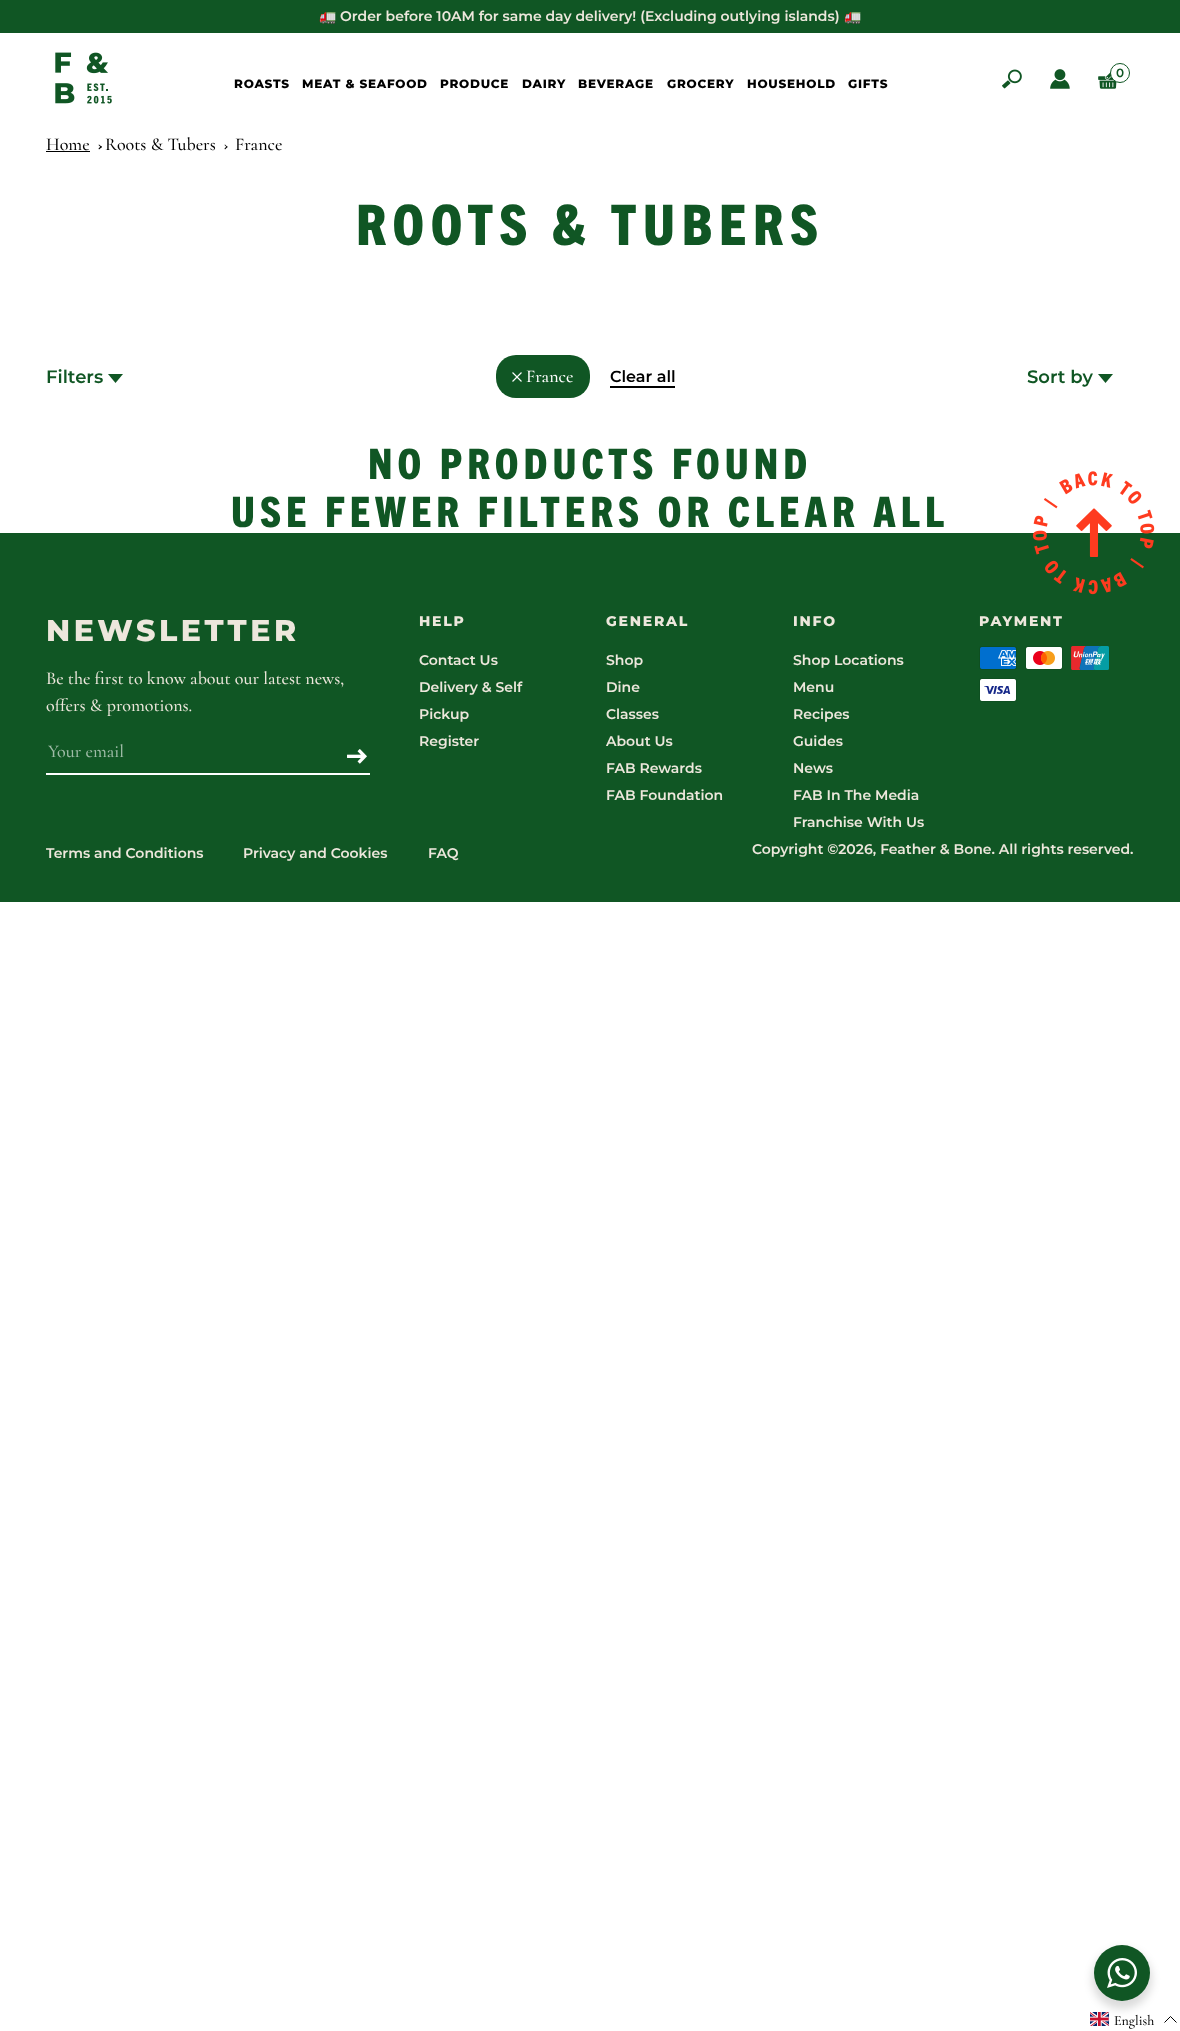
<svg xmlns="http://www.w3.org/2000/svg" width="1180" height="2031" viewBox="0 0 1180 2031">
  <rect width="100%" height="100%" fill="#fff"/>
  <path d="M0 0h1180v33H0z" fill="#105624"/>
  <image x="55" y="52" width="57" height="52" href="img/1.png"/>
  <image x="1002" y="69" width="20" height="20" href="img/2.png"/>
  <image x="1050" y="69" width="20" height="20" href="img/3.png"/>
  <image x="1098" y="71" width="19" height="18" href="img/4.png"/>
  <circle cx="1120" cy="73" r="9.5" fill="#fff" stroke="#105624"/>
  <path d="M46 151h44v1H46z" fill="#000"/>
  <path d="M99 144.5L102 147L101 147.5L98.5 145Z" fill="#000"/>
  <path d="M101 146L102 147L99 149.5L98.5 148.5Z" fill="#000"/>
  <path d="M225 144.5L227.5 147L227 147.5L224.5 145Z" fill="#000"/>
  <path d="M227 146L227.5 147L225 149.5L224.5 148.5Z" fill="#000"/>
  <path d="M108 374H123L115.5 383Z" fill="#105624"/>
  <rect x="496" y="355" width="94" height="43" rx="20" fill="#105624"/>
  <image x="512" y="372" width="10" height="10" href="img/5.png"/>
  <path d="M610 386h65v2H610z" fill="#000"/>
  <path d="M1098 374H1113L1105.5 383Z" fill="#105624"/>
  <path d="M0 533h1180v369H0z" fill="#105624"/>
  <image x="1032" y="471" width="123" height="124" href="img/6.png"/>
  <image x="1076" y="508" width="36" height="49" href="img/7.png"/>
  <path d="M46 773h324v2H46z" fill="#fff"/>
  <image x="347" y="749" width="20" height="15" href="img/8.png"/>
  <image x="979" y="646" width="38" height="24" href="img/9.png"/>
  <image x="1025" y="646" width="38" height="24" href="img/10.png"/>
  <image x="1071" y="646" width="38" height="24" href="img/11.png"/>
  <image x="979" y="678" width="38" height="24" href="img/12.png"/>
  <image x="1090" y="2012" width="19" height="14" href="img/14.png"/>
  <path d="M1176.5 2022.5L1170.5 2016.5L1164.5 2022.5" fill="none" stroke="#000"/>
  <rect x="1092" y="1949" width="60" height="60" rx="30" fill="#00000024" filter="blur(4px)"/>
  <circle cx="1122" cy="1973" r="28" fill="#105624"/>
  <image x="1107" y="1958" width="30" height="30" href="img/13.png"/>
  <text x="319" y="21" font-family="Noto Color Emoji" font-size="14" font-weight="bold" fill="#ede7dc">🚛</text>
  <text x="340" y="21" font-family="Montserrat" font-size="14" font-weight="600" fill="#ede7dc">Order before 10AM for same day delivery! (Excluding outlying islands)</text>
  <text x="844" y="21" font-family="Noto Color Emoji" font-size="14" font-weight="bold" fill="#ede7dc">🚛</text>
  <text x="1116" y="77" font-family="Montserrat" font-size="12" font-weight="600" fill="#105624">0</text>
  <g font-family="Montserrat" font-size="12" font-weight="800" letter-spacing="0.75" fill="#000">
    <text x="234" y="88">ROASTS</text>
    <text x="302" y="88">MEAT &amp; SEAFOOD</text>
    <text x="440" y="88">PRODUCE</text>
    <text x="522" y="88">DAIRY</text>
    <text x="578" y="88">BEVERAGE</text>
    <text x="667" y="88">GROCERY</text>
    <text x="747" y="88">HOUSEHOLD</text>
    <text x="848" y="88">GIFTS</text>
  </g>
  <g font-family="Cormorant" font-size="18" font-weight="300" fill="#000">
    <text x="46" y="150">Home</text>
    <text x="105" y="150">Roots &amp; Tubers</text>
    <text x="235" y="150">France</text>
  </g>
  <text x="356" y="245" font-family="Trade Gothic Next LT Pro" font-size="56" font-weight="800" letter-spacing="6.75" fill="#105624">ROOTS &amp; TUBERS</text>
  <text x="46" y="383" font-family="Montserrat" font-size="18" font-weight="600" fill="#105624">Filters</text>
  <text x="526" y="382" font-family="Cormorant" font-size="18" font-weight="300" fill="#fff">France</text>
  <text x="610" y="382" font-family="Montserrat" font-size="16" font-weight="600" fill="#000">Clear all</text>
  <text x="1027" y="383" font-family="Montserrat" font-size="18" font-weight="600" fill="#105624">Sort by</text>
  <g font-family="Trade Gothic Next LT Pro" font-size="42" font-weight="800" letter-spacing="5.05" fill="#105624">
    <text x="368" y="479">NO PRODUCTS FOUND</text>
    <text x="231" y="527">USE FEWER FILTERS OR CLEAR ALL</text>
  </g>
  <text x="46" y="641" font-family="Montserrat" font-size="30" font-weight="800" letter-spacing="3.6" fill="#ede7dc">NEWSLETTER</text>
  <g font-family="Cormorant" font-size="18" font-weight="300" fill="#ede7dc">
    <text x="46" y="684">Be the first to know about our latest news,</text>
    <text x="46" y="711">offers &amp; promotions.</text>
  </g>
  <text x="48" y="757" font-family="Cormorant" font-size="18" font-weight="300" fill="#9fbba7">Your email</text>
  <text x="419" y="626" font-family="Montserrat" font-size="14" font-weight="800" letter-spacing="1.75" fill="#ede7dc">HELP</text>
  <g font-family="Montserrat" font-size="14" font-weight="600" fill="#ede7dc">
    <text x="419" y="665">Contact Us</text>
    <text x="419" y="692">Delivery &amp; Self</text>
    <text x="419" y="719">Pickup</text>
    <text x="419" y="746">Register</text>
  </g>
  <text x="606" y="626" font-family="Montserrat" font-size="14" font-weight="800" letter-spacing="1.75" fill="#ede7dc">GENERAL</text>
  <g font-family="Montserrat" font-size="14" font-weight="600" fill="#ede7dc">
    <text x="606" y="665">Shop</text>
    <text x="606" y="692">Dine</text>
    <text x="606" y="719">Classes</text>
    <text x="606" y="746">About Us</text>
    <text x="606" y="773">FAB Rewards</text>
    <text x="606" y="800">FAB Foundation</text>
  </g>
  <text x="793" y="626" font-family="Montserrat" font-size="14" font-weight="800" letter-spacing="1.75" fill="#ede7dc">INFO</text>
  <g font-family="Montserrat" font-size="14" font-weight="600" fill="#ede7dc">
    <text x="793" y="665">Shop Locations</text>
    <text x="793" y="692">Menu</text>
    <text x="793" y="719">Recipes</text>
    <text x="793" y="746">Guides</text>
    <text x="793" y="773">News</text>
    <text x="793" y="800">FAB In The Media</text>
    <text x="793" y="827">Franchise With Us</text>
  </g>
  <text x="979" y="626" font-family="Montserrat" font-size="14" font-weight="800" letter-spacing="1.75" fill="#ede7dc">PAYMENT</text>
  <g font-family="Montserrat" font-size="14" font-weight="600" fill="#ede7dc">
    <text x="46" y="858">Terms and Conditions</text>
    <text x="243" y="858">Privacy and Cookies</text>
    <text x="428" y="858">FAQ</text>
    <text x="752" y="854">Copyright ©2026, Feather &amp; Bone. All rights reserved.</text>
  </g>
  <text x="1114" y="2025" font-family="Cormorant" font-size="14" font-weight="300" fill="#000">English</text>
</svg>
